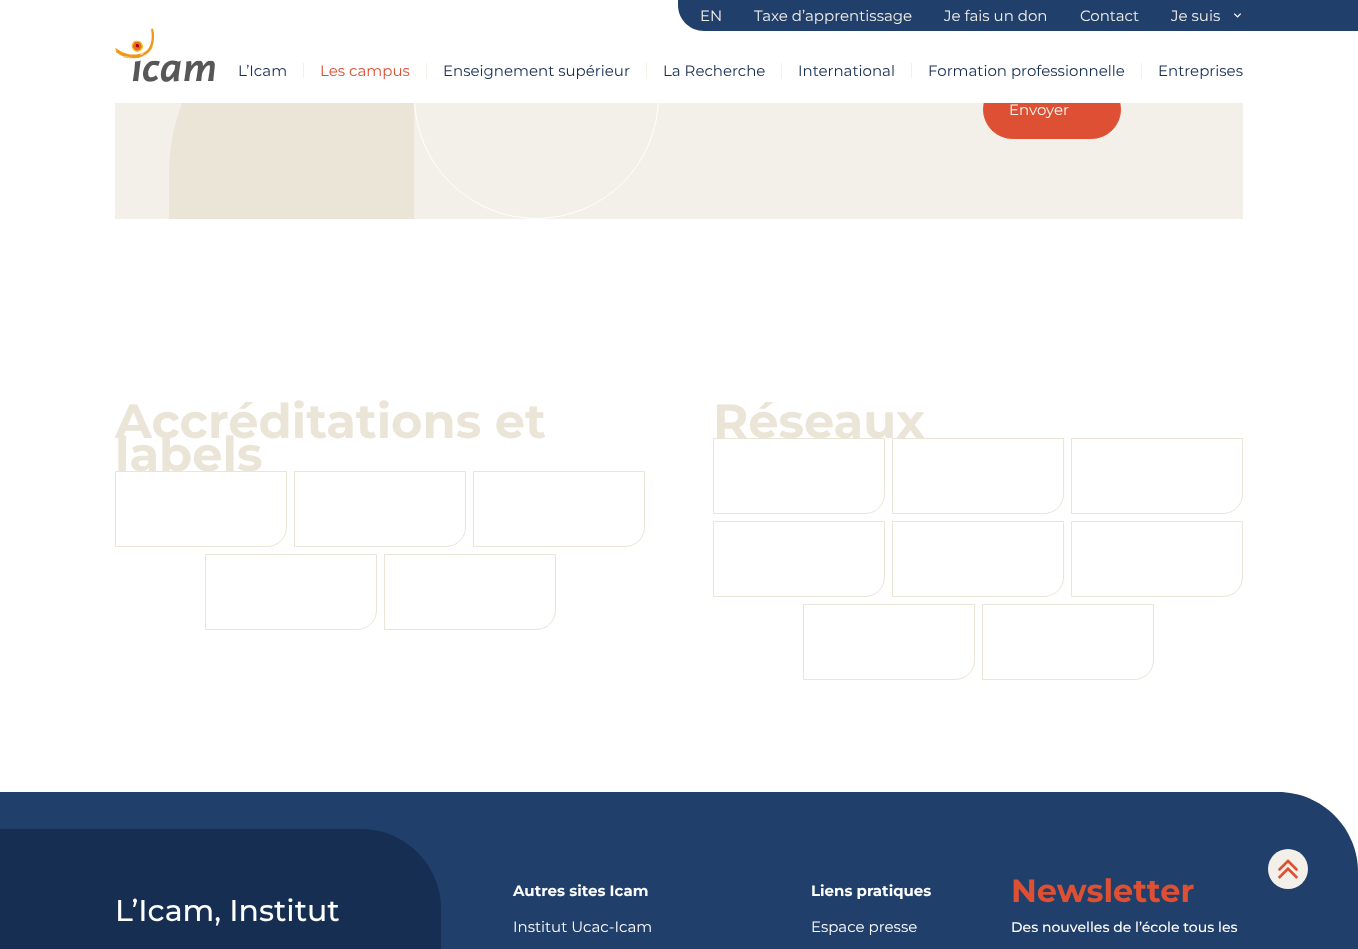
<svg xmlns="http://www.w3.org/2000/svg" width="1358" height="949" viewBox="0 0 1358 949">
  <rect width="100%" height="100%" fill="#fff"/>
  <path d="M115 103h1128v116H115z" fill="#f3f0ea"/>
  <path d="M369-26H414V219H169V174C169 63.5 258.5-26 369-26Z" fill="#ebe5d8"/>
  <circle cx="536.5" cy="96.5" r="122" fill="none" stroke="#fff"/>
  <rect x="983.5" y="80.5" width="137" height="58" rx="29" fill="#dd5034" stroke="#dd5034"/>
  <path d="M182 0h939v103H182z" fill="#fff"/>
  <image x="115" y="28" width="100" height="54" href="img/1.png"/>
  <path d="M678 0H1243V31H704C689.5 31 678 19.5 678 5Z" fill="#203f6a"/>
  <image x="1234" y="13" width="7" height="5" href="img/2.png"/>
  <path d="M1243 0h115v31H1243z" fill="#203f6a"/>
  <path d="M303 63h1v15H303z" fill="#f3f0ea"/>
  <path d="M426 63h1v15H426z" fill="#f3f0ea"/>
  <path d="M646 63h1v15H646z" fill="#f3f0ea"/>
  <path d="M781 63h1v15H781z" fill="#f3f0ea"/>
  <path d="M911 63h1v15H911z" fill="#f3f0ea"/>
  <path d="M1141 63h1v15H1141z" fill="#f3f0ea"/>
  <path d="M115.5 471.5H286.5V527C286.5 538 278 546.5 267 546.5H115.5Z" fill="none" stroke="#ebe5d8"/>
  <path d="M294.5 471.5H465.5V527C465.5 538 457 546.5 446 546.5H294.5Z" fill="none" stroke="#ebe5d8"/>
  <path d="M473.5 471.5H644.5V527C644.5 538 636 546.5 625 546.5H473.5Z" fill="none" stroke="#ebe5d8"/>
  <path d="M205.5 554.5H376.5V610C376.5 621 368 629.5 357 629.5H205.5Z" fill="none" stroke="#ebe5d8"/>
  <path d="M384.5 554.5H555.5V610C555.5 621 547 629.5 536 629.5H384.5Z" fill="none" stroke="#ebe5d8"/>
  <path d="M713.5 438.5H884.5V494C884.5 505 876 513.5 865 513.5H713.5Z" fill="none" stroke="#ebe5d8"/>
  <path d="M892.5 438.5H1063.5V494C1063.5 505 1055 513.5 1044 513.5H892.5Z" fill="none" stroke="#ebe5d8"/>
  <path d="M1071.5 438.5H1242.5V494C1242.5 505 1234 513.5 1223 513.5H1071.5Z" fill="none" stroke="#ebe5d8"/>
  <path d="M713.5 521.5H884.5V577C884.5 588 876 596.5 865 596.5H713.5Z" fill="none" stroke="#ebe5d8"/>
  <path d="M892.5 521.5H1063.5V577C1063.5 588 1055 596.5 1044 596.5H892.5Z" fill="none" stroke="#ebe5d8"/>
  <path d="M1071.5 521.5H1242.5V577C1242.5 588 1234 596.5 1223 596.5H1071.5Z" fill="none" stroke="#ebe5d8"/>
  <path d="M803.5 604.5H974.5V660C974.5 671 966 679.5 955 679.5H803.5Z" fill="none" stroke="#ebe5d8"/>
  <path d="M982.5 604.5H1153.5V660C1153.5 671 1145 679.5 1134 679.5H982.5Z" fill="none" stroke="#ebe5d8"/>
  <path d="M0 792H1278C1322 792 1358 828 1358 872V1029H0Z" fill="#203f6a"/>
  <circle cx="1288" cy="869" r="20" fill="#f3f0ea"/>
  <image x="1278" y="859" width="20" height="20" href="img/3.png"/>
  <path d="M115 829H361C405 829 441 865 441 909V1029H115Z" fill="#152e51"/>
  <path d="M0 829h115v120H0z" fill="#152e51"/>
  <g font-family="Montserrat" font-size="15" fill="#f3f0ea">
    <text x="700" y="21">EN</text>
    <text x="754" y="21">Taxe d’apprentissage</text>
    <text x="944" y="21">Je fais un don</text>
    <text x="1080" y="21">Contact</text>
    <text x="1171" y="21">Je suis</text>
  </g>
  <text x="238" y="76" font-family="Montserrat" font-size="15" fill="#152e51">L’Icam</text>
  <text x="320" y="76" font-family="Montserrat" font-size="15" fill="#dd5034">Les campus</text>
  <g font-family="Montserrat" font-size="15" fill="#152e51">
    <text x="443" y="76">Enseignement supérieur</text>
    <text x="663" y="76">La Recherche</text>
    <text x="798" y="76">International</text>
    <text x="928" y="76">Formation professionnelle</text>
    <text x="1158" y="76">Entreprises</text>
  </g>
  <text x="1009" y="115" font-family="Montserrat" font-size="15" fill="#fbf8f3">Envoyer</text>
  <g font-family="Montserrat" font-size="48" font-weight="bold" fill="#ebe5d8">
    <text x="115" y="438">Accréditations et</text>
    <text x="115" y="471">labels</text>
    <text x="713" y="438">Réseaux</text>
  </g>
  <text x="115" y="921" font-family="Montserrat" font-size="30" font-weight="500" fill="#fff">L’Icam, Institut</text>
  <text x="513" y="896" font-family="Montserrat" font-size="15" font-weight="bold" fill="#fff">Autres sites Icam</text>
  <text x="513" y="932" font-family="Montserrat" font-size="15" fill="#fff">Institut Ucac-Icam</text>
  <text x="811" y="896" font-family="Montserrat" font-size="15" font-weight="bold" fill="#fff">Liens pratiques</text>
  <text x="811" y="932" font-family="Montserrat" font-size="15" fill="#fff">Espace presse</text>
  <text x="1011" y="902" font-family="Montserrat" font-size="32" font-weight="bold" fill="#dd5034">Newsletter</text>
  <text x="1011" y="932" font-family="Montserrat" font-size="14" font-weight="500" fill="#fff">Des nouvelles de l’école tous les</text>
</svg>
